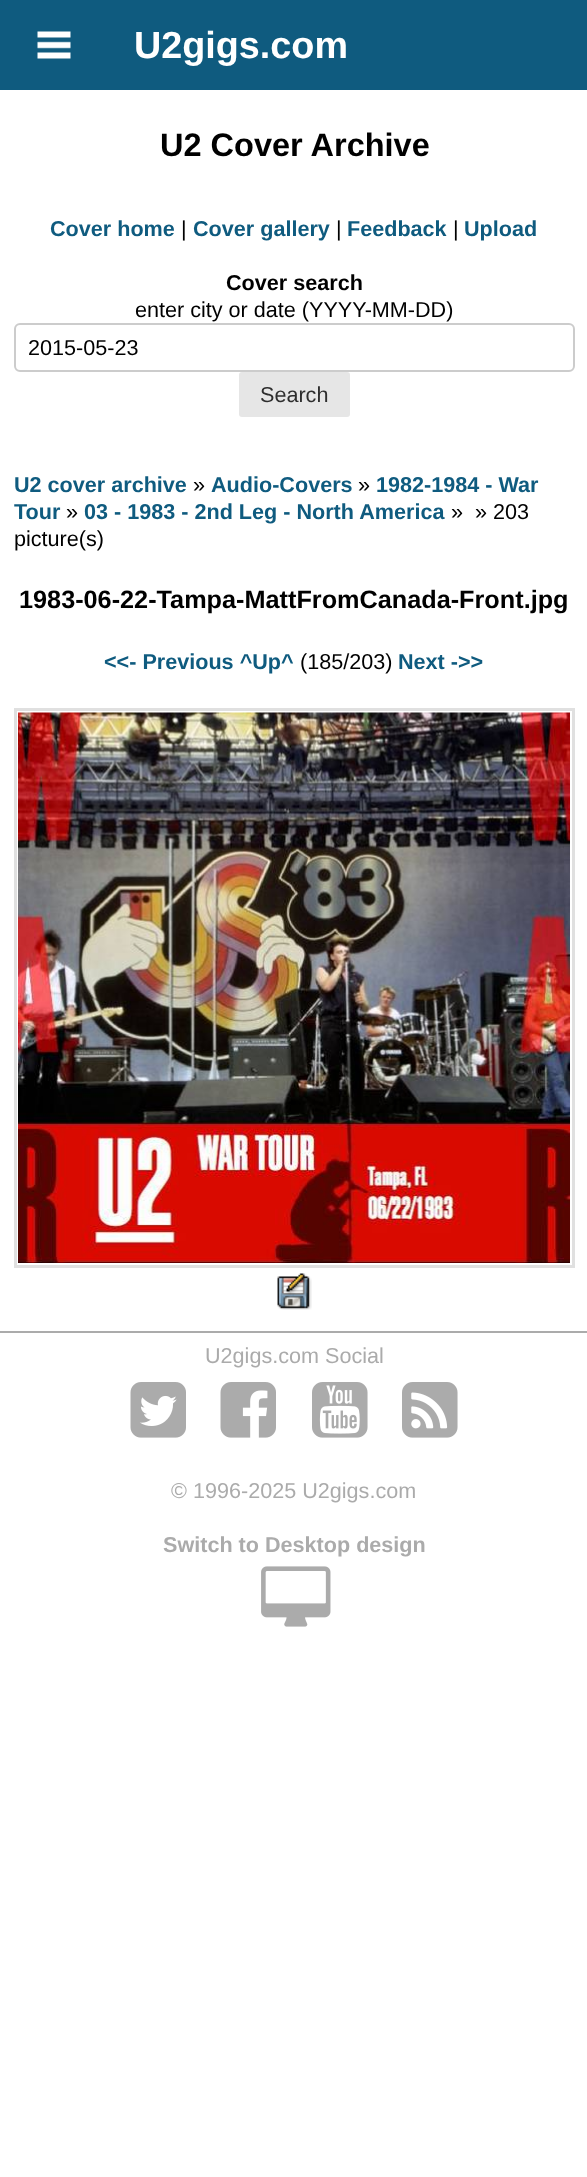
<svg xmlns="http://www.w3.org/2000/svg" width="587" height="2177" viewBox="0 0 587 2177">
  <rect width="100%" height="100%" fill="#fff"/>
  <path d="M0 0h587v90H0z" fill="#0f5b7f"/>
  <image x="37" y="31" width="34" height="28" href="img/1.png"/>
  <rect x="15" y="324" width="559" height="47" rx="5" fill="none" stroke="#ccc" stroke-width="2"/>
  <rect x="239" y="372" width="111" height="45" rx="3" fill="#e6e6e6"/>
  <path d="M15.5 709.5h558v557H15.5z" fill="none" stroke="#e0e0e0" stroke-width="3"/>
  <image x="18" y="712" width="552" height="551" href="img/2.png"/>
  <image x="277" y="1273" width="35" height="37" href="img/3.png"/>
  <path d="M0 1331h587v2H0z" fill="#ababab"/>
  <image x="130" y="1382" width="56" height="56" href="img/4.png"/>
  <image x="220" y="1382" width="56" height="56" href="img/5.png"/>
  <image x="312" y="1382" width="56" height="56" href="img/6.png"/>
  <image x="402" y="1382" width="56" height="56" href="img/7.png"/>
  <image x="261" y="1566" width="70" height="61" href="img/8.png"/>
  <text x="134" y="58" font-family="Liberation Sans" font-size="37.75" font-weight="bold" fill="#fff">U2gigs.com</text>
  <text x="160" y="156" font-family="Liberation Sans" font-size="32.5" font-weight="bold" fill="#000">U2 Cover Archive</text>
  <text x="50" y="236" font-family="Liberation Sans" font-size="21.6" font-weight="bold" fill="#0f5b7f">Cover home</text>
  <text x="181" y="236" font-family="Liberation Sans" font-size="21.6" fill="#000">|</text>
  <text x="193" y="236" font-family="Liberation Sans" font-size="21.6" font-weight="bold" fill="#0f5b7f">Cover gallery</text>
  <text x="336" y="236" font-family="Liberation Sans" font-size="21.6" fill="#000">|</text>
  <text x="347" y="236" font-family="Liberation Sans" font-size="21.6" font-weight="bold" fill="#0f5b7f">Feedback</text>
  <text x="453" y="236" font-family="Liberation Sans" font-size="21.6" fill="#000">|</text>
  <text x="464" y="236" font-family="Liberation Sans" font-size="21.6" font-weight="bold" fill="#0f5b7f">Upload</text>
  <text x="226" y="290" font-family="Liberation Sans" font-size="21.6" font-weight="bold" fill="#000">Cover search</text>
  <g font-family="Liberation Sans" font-size="21.6" fill="#000">
    <text x="135" y="317">enter city or date (YYYY-MM-DD)</text>
    <text x="28" y="355">2015-05-23</text>
  </g>
  <text x="260" y="402" font-family="Liberation Sans" font-size="21.6" fill="#2e2e2e">Search</text>
  <text x="14" y="492" font-family="Liberation Sans" font-size="21.6" font-weight="bold" fill="#0f5b7f">U2 cover archive</text>
  <text x="193" y="492" font-family="Liberation Sans" font-size="21.6" fill="#000">»</text>
  <text x="211" y="492" font-family="Liberation Sans" font-size="21.6" font-weight="bold" fill="#0f5b7f">Audio-Covers</text>
  <text x="358" y="492" font-family="Liberation Sans" font-size="21.6" fill="#000">»</text>
  <g font-family="Liberation Sans" font-size="21.6" font-weight="bold" fill="#0f5b7f">
    <text x="376" y="492">1982-1984 - War</text>
    <text x="14" y="519">Tour</text>
  </g>
  <text x="66" y="519" font-family="Liberation Sans" font-size="21.6" fill="#000">»</text>
  <text x="84" y="519" font-family="Liberation Sans" font-size="21.6" font-weight="bold" fill="#0f5b7f">03 - 1983 - 2nd Leg - North America</text>
  <g font-family="Liberation Sans" font-size="21.6" fill="#000">
    <text x="451" y="519" xml:space="preserve">»  » 203</text>
    <text x="14" y="546">picture(s)</text>
  </g>
  <text x="19" y="608" font-family="Liberation Sans" font-size="25.25" font-weight="bold" fill="#000">1983-06-22-Tampa-MattFromCanada-Front.jpg</text>
  <text x="104" y="669" font-family="Liberation Sans" font-size="21.6" font-weight="bold" fill="#0f5b7f">&lt;&lt;- Previous ^Up^</text>
  <text x="300" y="669" font-family="Liberation Sans" font-size="21.6" fill="#000">(185/203)</text>
  <text x="398" y="669" font-family="Liberation Sans" font-size="21.6" font-weight="bold" fill="#0f5b7f">Next -&gt;&gt;</text>
  <g font-family="Liberation Sans" font-size="21.6" fill="#ababab">
    <text x="205" y="1363">U2gigs.com Social</text>
    <text x="171" y="1498">© 1996-2025 U2gigs.com</text>
  </g>
  <text x="163" y="1552" font-family="Liberation Sans" font-size="21.6" font-weight="bold" fill="#ababab">Switch to Desktop design</text>
</svg>
